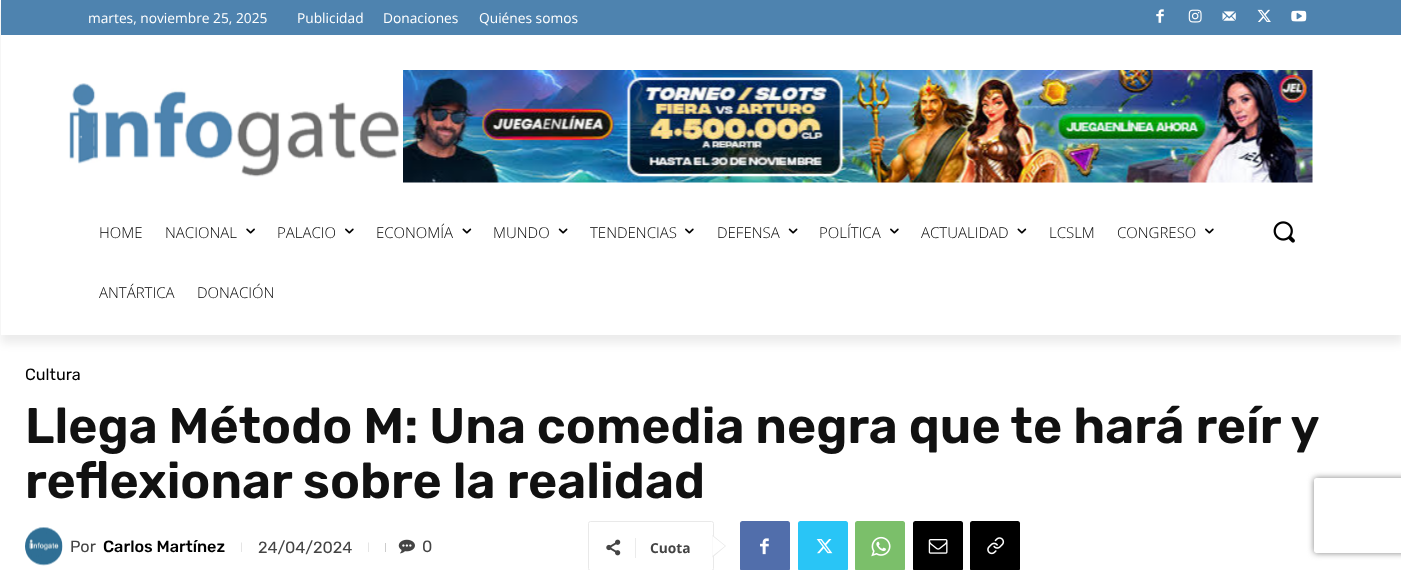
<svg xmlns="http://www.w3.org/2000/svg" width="1401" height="570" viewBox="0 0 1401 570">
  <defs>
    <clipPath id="clip1"><path d="M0 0H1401V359H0ZM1 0H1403V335H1Z" clip-rule="evenodd"/></clipPath>
    <clipPath id="clip2"><path d="M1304 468H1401V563H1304ZM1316.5 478H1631.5C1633 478 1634 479 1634 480.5V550.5C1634 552 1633 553 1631.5 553H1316.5C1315 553 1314 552 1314 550.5V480.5C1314 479 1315 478 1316.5 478Z" clip-rule="evenodd"/></clipPath>
  </defs>
  <rect width="100%" height="100%" fill="#fff"/>
  <path d="M1 0h1400v35H1z" fill="#4e83af"/>
  <image x="1156" y="9" width="8" height="14" href="img/1.png"/>
  <image x="1188" y="9" width="14" height="14" href="img/2.png"/>
  <image x="1222" y="11" width="14" height="10" href="img/3.png"/>
  <image x="1257" y="9" width="14" height="13" href="img/4.png"/>
  <image x="1291" y="10" width="16" height="12" href="img/5.png"/>
  <image x="69" y="83" width="331" height="94" href="img/6.png"/>
  <image x="403" y="70" width="910" height="113" href="img/7.png"/>
  <g clip-path="url(#clip1)">
    <path d="M1 8h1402v335H1z" fill="#00000014" filter="blur(5px)"/>
  </g>
  <image x="246" y="228" width="9" height="6" href="img/8.png"/>
  <image x="345" y="228" width="9" height="6" href="img/9.png"/>
  <image x="462" y="228" width="10" height="6" href="img/10.png"/>
  <image x="558" y="228" width="10" height="6" href="img/11.png"/>
  <image x="685" y="228" width="9" height="6" href="img/9.png"/>
  <image x="788" y="228" width="10" height="6" href="img/11.png"/>
  <image x="890" y="228" width="9" height="6" href="img/9.png"/>
  <image x="1017" y="228" width="10" height="6" href="img/10.png"/>
  <image x="1205" y="228" width="9" height="6" href="img/9.png"/>
  <image x="1273" y="221" width="22" height="22" href="img/12.png"/>
  <image x="25" y="527" width="38" height="39" href="img/13.png"/>
  <path d="M241 542.5H241.5V552H241Z" fill="#ccc"/>
  <path d="M368.5 542.5H369V552H368.5Z" fill="#ccc"/>
  <path d="M385 543h1v9H385z" fill="#ccc"/>
  <image x="398" y="539" width="17" height="15" href="img/14.png"/>
  <rect x="588.5" y="521.5" width="125" height="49" rx="2" fill="none" stroke="#e9e9e9"/>
  <path d="M712.5 557.5V535L726 546Z" fill="#e9e9e9"/>
  <image x="606" y="539" width="15" height="17" href="img/15.png"/>
  <path d="M635 538h1v20H635z" fill="#ebebeb"/>
  <path d="M712.5 556V536L725 546Z" fill="#fff"/>
  <rect x="740" y="521" width="50" height="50" rx="2.5" fill="#516eab"/>
  <image x="760" y="538" width="9" height="17" href="img/16.png"/>
  <rect x="798" y="521" width="50" height="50" rx="2.5" fill="#29c5f6"/>
  <image x="816" y="539" width="17" height="15" href="img/17.png"/>
  <rect x="855" y="521" width="50" height="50" rx="2.5" fill="#7bbf6a"/>
  <image x="871" y="536" width="20" height="21" href="img/18.png"/>
  <rect x="913" y="521" width="50" height="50" rx="2.5" fill="#000"/>
  <image x="928" y="539" width="20" height="15" href="img/19.png"/>
  <rect x="970" y="521" width="50" height="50" rx="2.5" fill="#000"/>
  <image x="987" y="537" width="18" height="18" href="img/20.png"/>
  <g clip-path="url(#clip2)">
    <rect x="1314" y="478" width="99" height="75" rx="2.5" fill="#808080" filter="blur(3px)"/>
  </g>
  <g font-family="Open Sans" font-size="13.75" fill="#fff">
    <text x="88" y="23">martes, noviembre 25, 2025</text>
    <text x="297" y="23">Publicidad</text>
    <text x="383" y="23">Donaciones</text>
    <text x="479" y="23">Quiénes somos</text>
  </g>
  <g font-family="Open Sans" font-size="15" font-weight="300" fill="#000">
    <text x="99" y="238">HOME</text>
    <text x="165" y="238">NACIONAL</text>
    <text x="277" y="238">PALACIO</text>
    <text x="376" y="238">ECONOMÍA</text>
    <text x="493" y="238">MUNDO</text>
    <text x="590" y="238">TENDENCIAS</text>
    <text x="717" y="238">DEFENSA</text>
    <text x="819" y="238">POLÍTICA</text>
    <text x="921" y="238">ACTUALIDAD</text>
    <text x="1049" y="238">LCSLM</text>
    <text x="1117" y="238">CONGRESO</text>
    <text x="99" y="298">ANTÁRTICA</text>
    <text x="197" y="298">DONACIÓN</text>
  </g>
  <text x="25" y="380" font-family="Rubik" font-size="16.25" fill="#000">Cultura</text>
  <g font-family="Rubik" font-size="50" font-weight="600" fill="#111">
    <text x="25" y="443" word-spacing="-0.1">Llega Método M: Una comedia negra que te hará reír y</text>
    <text x="25" y="498">reflexionar sobre la realidad</text>
  </g>
  <text x="70" y="552" font-family="Rubik" font-size="16.25" fill="#444">Por</text>
  <text x="103" y="552" font-family="Rubik" font-size="16.25" font-weight="500" fill="#000">Carlos Martínez</text>
  <g font-family="Rubik" font-size="16.25" fill="#444">
    <text x="258" y="553">24/04/2024</text>
    <text x="422" y="552">0</text>
  </g>
  <text x="650" y="553" font-family="Open Sans" font-size="13.75" font-weight="bold" fill="#444">Cuota</text>
</svg>
